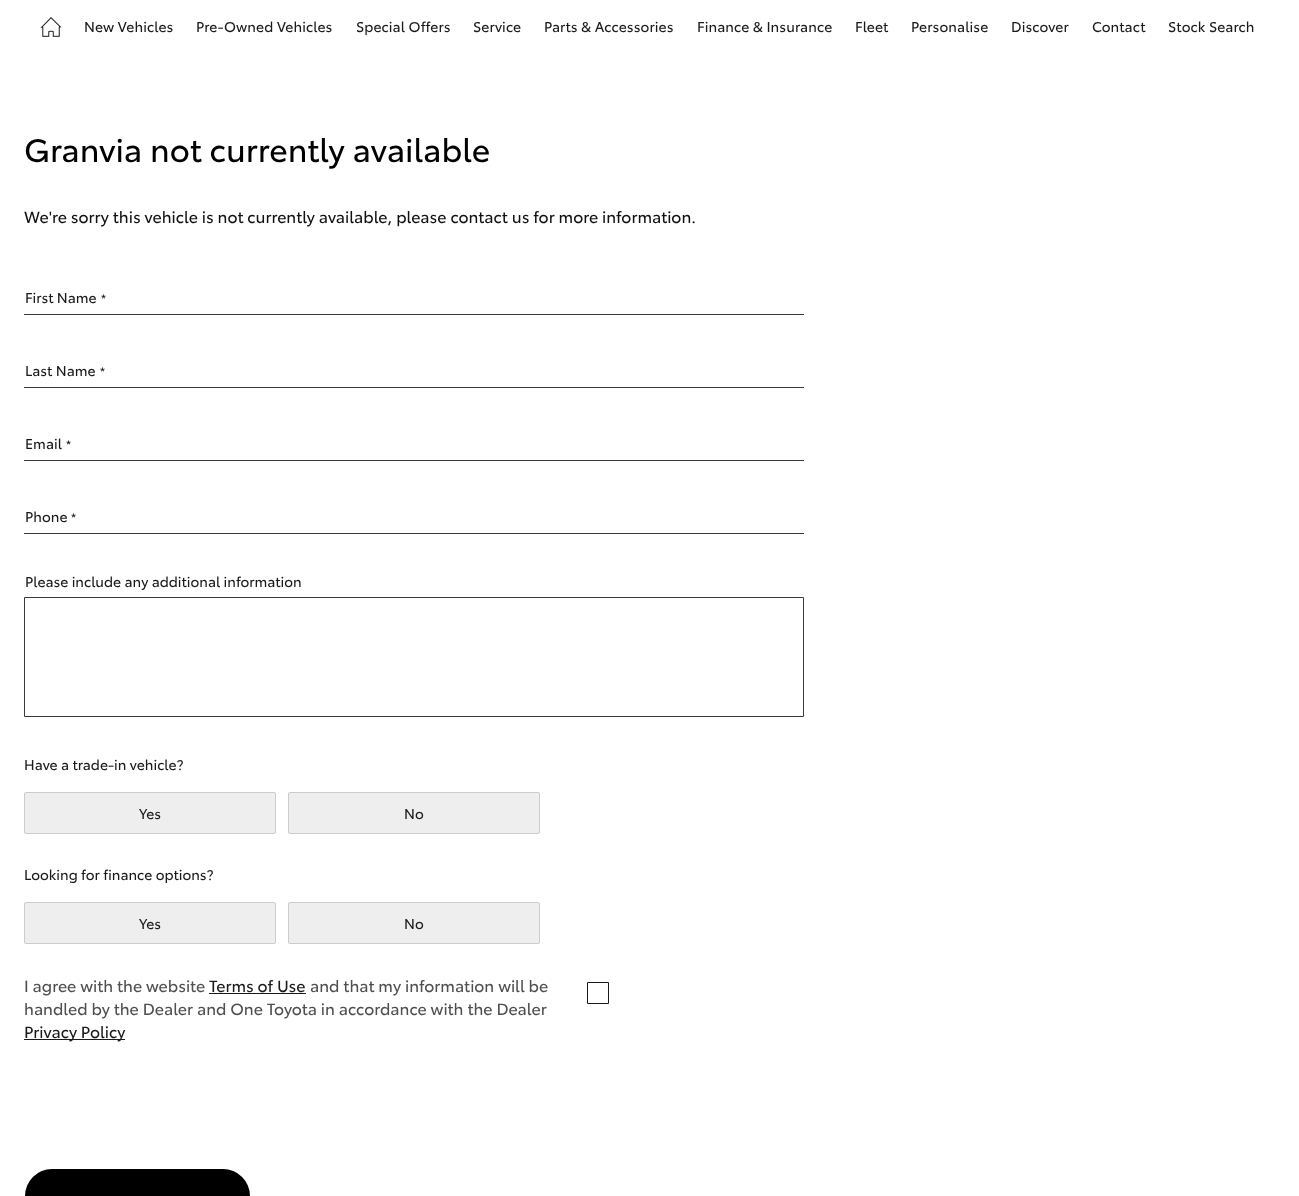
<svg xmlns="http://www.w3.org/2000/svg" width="1299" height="1196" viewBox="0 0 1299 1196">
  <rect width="100%" height="100%" fill="#fff"/>
  <image x="40" y="17" width="22" height="20" href="img/1.png"/>
  <path d="M24 314h780v1H24z" fill="#3a3a3a"/>
  <path d="M24 387h780v1H24z" fill="#3a3a3a"/>
  <path d="M24 460h780v1H24z" fill="#3a3a3a"/>
  <path d="M24 533h780v1H24z" fill="#3a3a3a"/>
  <path d="M24.5 597.5h779v119H24.5z" fill="none" stroke="#3a3a3a"/>
  <rect x="24.5" y="792.5" width="251" height="41" rx="1.5" fill="#eee" stroke="#ccc"/>
  <rect x="288.5" y="792.5" width="251" height="41" rx="1.5" fill="#eee" stroke="#ccc"/>
  <rect x="24.5" y="902.5" width="251" height="41" rx="1.5" fill="#eee" stroke="#ccc"/>
  <rect x="288.5" y="902.5" width="251" height="41" rx="1.5" fill="#eee" stroke="#ccc"/>
  <path d="M209 993h97v1H209z" fill="#1a1a1a"/>
  <path d="M24 1039h101v1H24z" fill="#1a1a1a"/>
  <path d="M587.5 982.5h21v21H587.5z" fill="none" stroke="#1a1a1a"/>
  <rect x="25" y="1169" width="225" height="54" rx="27" fill="#000"/>
  <g font-family="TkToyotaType" font-size="14" letter-spacing="0.1" fill="#1a1a1a">
    <text x="84" y="32">New Vehicles</text>
    <text x="196" y="32">Pre-Owned Vehicles</text>
    <text x="356" y="32">Special Offers</text>
    <text x="473" y="32">Service</text>
    <text x="544" y="32">Parts &amp; Accessories</text>
    <text x="697" y="32">Finance &amp; Insurance</text>
    <text x="855" y="32">Fleet</text>
    <text x="911" y="32">Personalise</text>
    <text x="1011" y="32">Discover</text>
    <text x="1092" y="32">Contact</text>
    <text x="1168" y="32">Stock Search</text>
  </g>
  <text x="24" y="162" font-family="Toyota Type" font-size="32" fill="#000">Granvia not currently available</text>
  <text x="24" y="223" font-family="Toyota Type" font-size="16" fill="#111">We're sorry this vehicle is not currently available, please contact us for more information.</text>
  <text x="25" y="303" font-family="Toyota Type" font-size="14" fill="#1a1a1a">First Name</text>
  <text x="101" y="303" font-family="Toyota Type" font-size="12" fill="#1a1a1a">*</text>
  <text x="25" y="376" font-family="Toyota Type" font-size="14" fill="#1a1a1a">Last Name</text>
  <text x="100" y="376" font-family="Toyota Type" font-size="12" fill="#1a1a1a">*</text>
  <text x="25" y="449" font-family="Toyota Type" font-size="14" fill="#1a1a1a">Email</text>
  <text x="66" y="449" font-family="Toyota Type" font-size="12" fill="#1a1a1a">*</text>
  <text x="25" y="522" font-family="Toyota Type" font-size="14" fill="#1a1a1a">Phone</text>
  <text x="71" y="522" font-family="Toyota Type" font-size="12" fill="#1a1a1a">*</text>
  <g font-family="Toyota Type" font-size="14" fill="#1a1a1a">
    <text x="25" y="587">Please include any additional information</text>
    <text x="24" y="770">Have a trade-in vehicle?</text>
    <text x="139" y="819">Yes</text>
    <text x="404" y="819">No</text>
    <text x="24" y="880">Looking for finance options?</text>
    <text x="139" y="929">Yes</text>
    <text x="404" y="929">No</text>
  </g>
  <text x="24" y="992" font-family="Toyota Type" font-size="16" fill="#4f4f51">I agree with the website</text>
  <text x="209" y="992" font-family="Toyota Type" font-size="16" fill="#1a1a1a">Terms of Use</text>
  <g font-family="Toyota Type" font-size="16" fill="#4f4f51">
    <text x="310" y="992">and that my information will be</text>
    <text x="24" y="1015">handled by the Dealer and One Toyota in accordance with the Dealer</text>
  </g>
  <text x="24" y="1038" font-family="Toyota Type" font-size="16" fill="#1a1a1a">Privacy Policy</text>
</svg>
